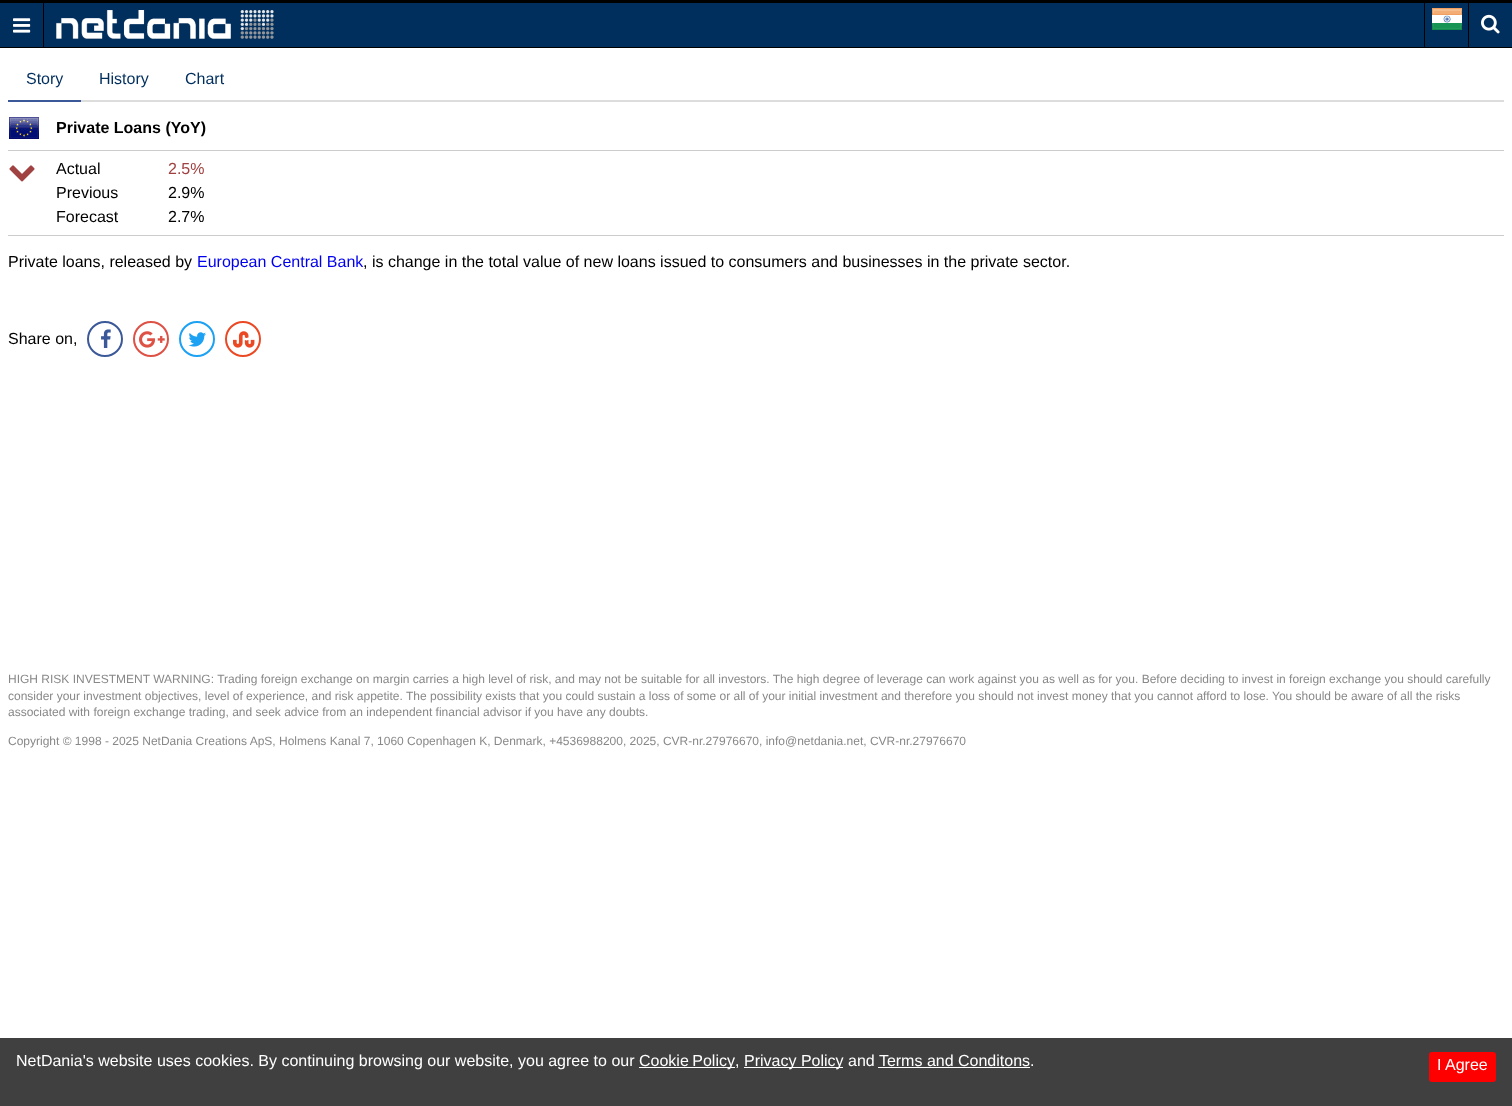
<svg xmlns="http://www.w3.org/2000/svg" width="1512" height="1106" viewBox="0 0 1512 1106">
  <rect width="100%" height="100%" fill="#fff"/>
  <path d="M0 3h1512v44H0z" fill="#002e5d"/>
  <path d="M0 0h1512v3H0z" fill="#000"/>
  <path d="M0 47h1512v1H0z" fill="#000"/>
  <path d="M43 3h1v44H43z" fill="#000"/>
  <image x="13" y="18" width="18" height="15" href="img/1.png"/>
  <image x="56" y="10" width="218" height="29" href="img/2.png"/>
  <path d="M1424 3h1v44H1424z" fill="#000"/>
  <image x="1432" y="8" width="30" height="22" href="img/3.png"/>
  <path d="M1468 3h1v44H1468z" fill="#000"/>
  <image x="1481" y="14" width="19" height="20" href="img/4.png"/>
  <path d="M8 100h73v2H8z" fill="#3b5998"/>
  <path d="M81 100h1423v2H81z" fill="#ddd"/>
  <path d="M8 150h1496v1H8z" fill="#ccc"/>
  <image x="9" y="117" width="30" height="22" href="img/5.png"/>
  <path d="M8 235h1496v1H8z" fill="#ccc"/>
  <image x="9" y="165" width="26" height="17" href="img/6.png"/>
  <circle cx="105" cy="339" r="17" fill="none" stroke="#3b5998" stroke-width="2"/>
  <image x="101" y="329" width="10" height="19" href="img/7.png"/>
  <circle cx="151" cy="339" r="17" fill="none" stroke="#de5145" stroke-width="2"/>
  <image x="139" y="331" width="26" height="17" href="img/8.png"/>
  <circle cx="197" cy="339" r="17" fill="none" stroke="#1da1f3" stroke-width="2"/>
  <image x="188" y="332" width="18" height="15" href="img/9.png"/>
  <circle cx="243" cy="339" r="17" fill="none" stroke="#eb4924" stroke-width="2"/>
  <image x="233" y="331" width="22" height="17" href="img/10.png"/>
  <path d="M0 1038h1512v68H0z" fill="#404040"/>
  <path d="M639 1067h96v1H639z" fill="#fff"/>
  <path d="M744 1067h99v1H744z" fill="#fff"/>
  <rect x="1429" y="1052" width="67" height="30" rx="3" fill="#f00"/>
  <path d="M878 1067h152v1H878z" fill="#fff"/>
  <g font-family="Liberation Sans" font-size="16" fill="#002e5d">
    <text x="26" y="84">Story</text>
    <text x="99" y="84">History</text>
    <text x="185" y="84">Chart</text>
  </g>
  <text x="56" y="133" font-family="Liberation Sans" font-size="16" font-weight="bold" fill="#000">Private Loans (YoY)</text>
  <text x="56" y="174" font-family="Liberation Sans" font-size="16" fill="#000">Actual</text>
  <text x="168" y="174" font-family="Liberation Sans" font-size="16" fill="#a14242">2.5%</text>
  <g font-family="Liberation Sans" font-size="16" fill="#000">
    <text x="56" y="198">Previous</text>
    <text x="168" y="198">2.9%</text>
    <text x="56" y="222">Forecast</text>
    <text x="168" y="222">2.7%</text>
    <text x="8" y="267">Private loans, released by</text>
  </g>
  <text x="197" y="267" font-family="Liberation Sans" font-size="16" fill="#00e">European Central Bank</text>
  <g font-family="Liberation Sans" font-size="16" fill="#000">
    <text x="363" y="267">, is change in the total value of new loans issued to consumers and businesses in the private sector.</text>
    <text x="8" y="344">Share on,</text>
  </g>
  <g font-family="Liberation Sans" font-size="12" fill="#888">
    <text x="8" y="683">HIGH RISK INVESTMENT WARNING: Trading foreign exchange on margin carries a high level of risk, and may not be suitable for all investors. The high degree of leverage can work against you as well as for you. Before deciding to invest in foreign exchange you should carefully</text>
    <text x="8" y="700">consider your investment objectives, level of experience, and risk appetite. The possibility exists that you could sustain a loss of some or all of your initial investment and therefore you should not invest money that you cannot afford to lose. You should be aware of all the risks</text>
    <text x="8" y="716">associated with foreign exchange trading, and seek advice from an independent financial advisor if you have any doubts.</text>
    <text x="8" y="745">Copyright © 1998 - 2025 NetDania Creations ApS, Holmens Kanal 7, 1060 Copenhagen K, Denmark, +4536988200, 2025, CVR-nr.27976670, info@netdania.net, CVR-nr.27976670</text>
  </g>
  <g font-family="Liberation Sans" font-size="16" fill="#fff">
    <text x="16" y="1066">NetDania's website uses cookies. By continuing browsing our website, you agree to our</text>
    <text x="639" y="1066" word-spacing="-1">Cookie Policy</text>
    <text x="735" y="1066">,</text>
    <text x="744" y="1066">Privacy Policy and Terms and Conditons.</text>
    <text x="1437" y="1070">I Agree</text>
  </g>
</svg>
